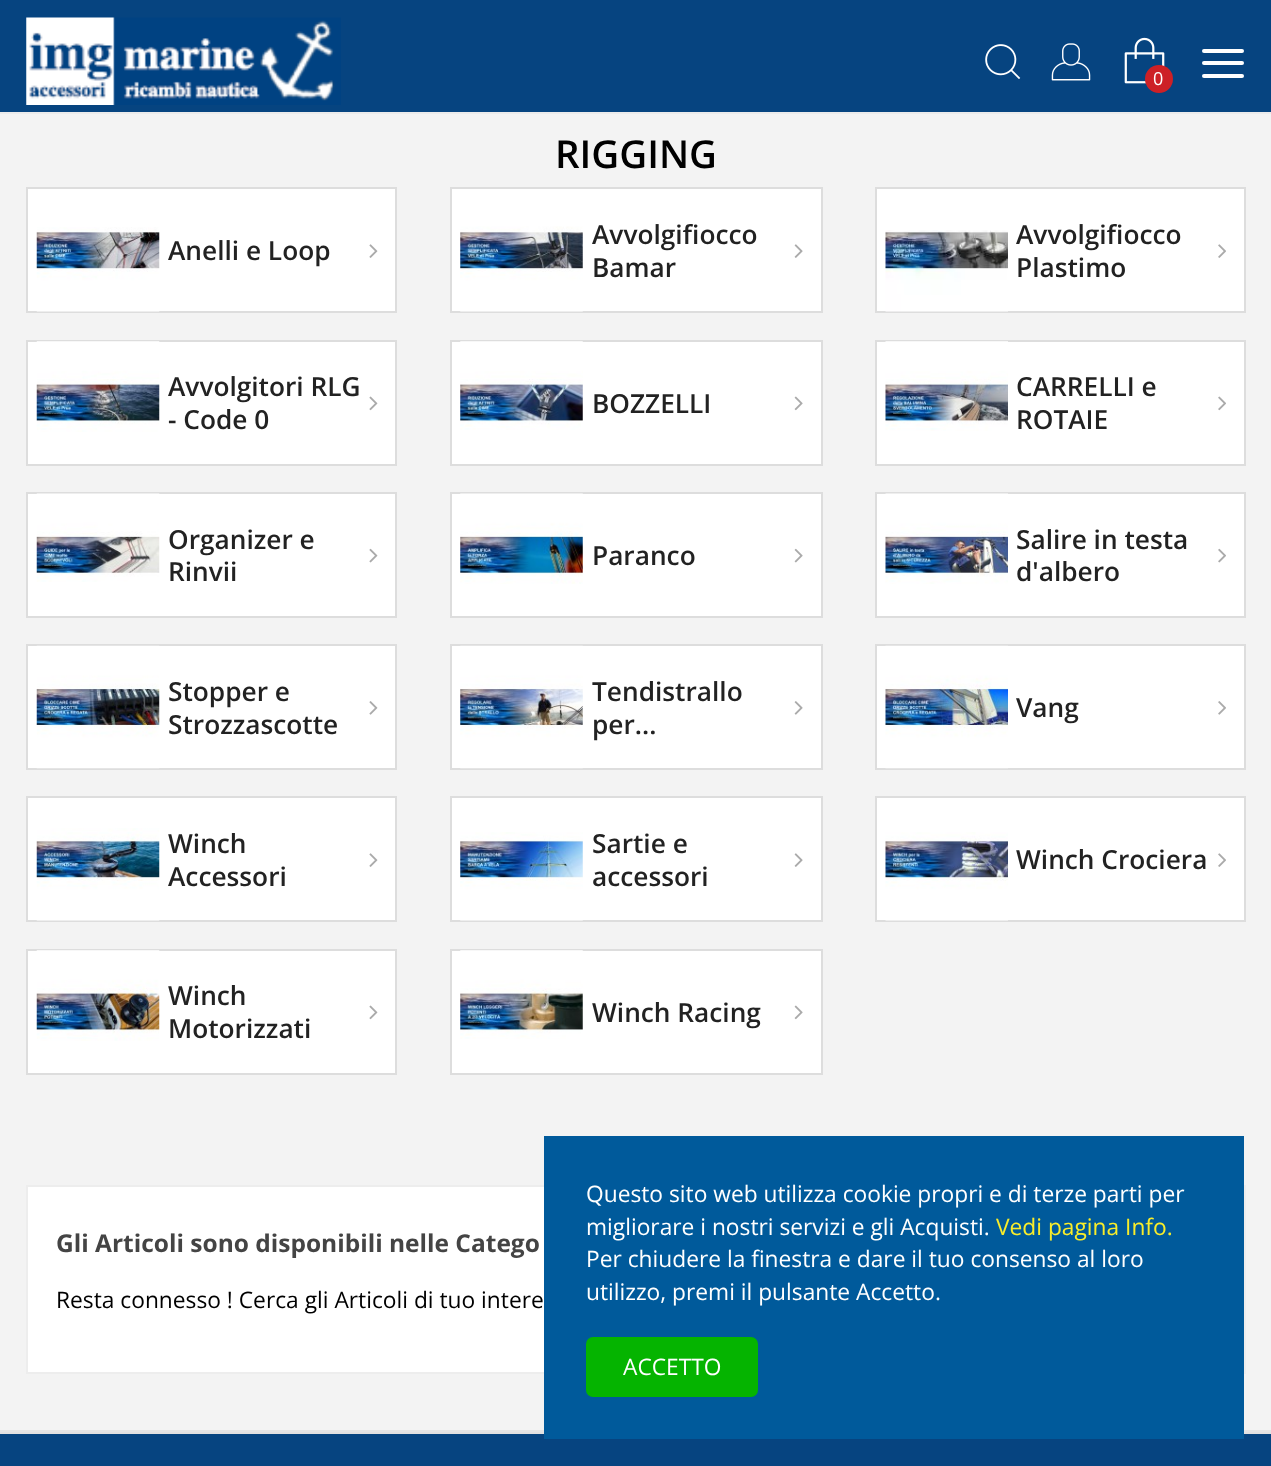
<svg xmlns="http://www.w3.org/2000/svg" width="1271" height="1466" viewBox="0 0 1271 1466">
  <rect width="100%" height="100%" fill="#064480"/>
  <image x="26" y="17" width="315" height="88" href="img/1.png"/>
  <image x="985" y="44" width="36" height="35" href="img/2.png"/>
  <image x="1051" y="43" width="40" height="38" href="img/3.png"/>
  <image x="1124" y="37" width="41" height="47" href="img/4.png"/>
  <circle cx="1159" cy="79" r="14" fill="#cd2026"/>
  <rect x="1202" y="61" width="42" height="4" rx="2" fill="#fff"/>
  <rect x="1202" y="49" width="42" height="4" rx="2" fill="#fff"/>
  <rect x="1202" y="74" width="42" height="4" rx="2" fill="#fff"/>
  <path d="M0 112h1271v2H0z" fill="#ebebeb"/>
  <path d="M0 114h1271v1316H0z" fill="#f3f3f3"/>
  <path d="M27 188h369v124H27z" fill="#fff" stroke="#ddd" stroke-width="2"/>
  <image x="36" y="227" width="124" height="85" href="img/5.png"/>
  <image x="369" y="244" width="9" height="14" href="img/6.png"/>
  <path d="M451 188h371v124H451z" fill="#fff" stroke="#ddd" stroke-width="2"/>
  <image x="460" y="226" width="123" height="86" href="img/7.png"/>
  <image x="794" y="244" width="9" height="14" href="img/8.png"/>
  <path d="M876 188h369v124H876z" fill="#fff" stroke="#ddd" stroke-width="2"/>
  <image x="885" y="230" width="123" height="82" href="img/9.png"/>
  <image x="1218" y="244" width="8" height="14" href="img/10.png"/>
  <path d="M27 341h369v124H27z" fill="#fff" stroke="#ddd" stroke-width="2"/>
  <image x="36" y="341" width="124" height="91" href="img/11.png"/>
  <image x="369" y="396" width="9" height="15" href="img/12.png"/>
  <path d="M451 341h371v124H451z" fill="#fff" stroke="#ddd" stroke-width="2"/>
  <image x="460" y="341" width="123" height="89" href="img/13.png"/>
  <image x="794" y="396" width="9" height="15" href="img/14.png"/>
  <path d="M876 341h369v124H876z" fill="#fff" stroke="#ddd" stroke-width="2"/>
  <image x="885" y="341" width="123" height="90" href="img/15.png"/>
  <image x="1218" y="396" width="8" height="15" href="img/16.png"/>
  <path d="M27 493h369v124H27z" fill="#fff" stroke="#ddd" stroke-width="2"/>
  <image x="36" y="493" width="124" height="89" href="img/17.png"/>
  <image x="369" y="548" width="9" height="15" href="img/18.png"/>
  <path d="M451 493h371v124H451z" fill="#fff" stroke="#ddd" stroke-width="2"/>
  <image x="460" y="493" width="123" height="91" href="img/19.png"/>
  <image x="794" y="548" width="9" height="15" href="img/20.png"/>
  <path d="M876 493h369v124H876z" fill="#fff" stroke="#ddd" stroke-width="2"/>
  <image x="885" y="493" width="123" height="91" href="img/21.png"/>
  <image x="1218" y="548" width="8" height="15" href="img/22.png"/>
  <path d="M27 645h369v124H27z" fill="#fff" stroke="#ddd" stroke-width="2"/>
  <image x="36" y="645" width="124" height="124" href="img/23.png"/>
  <image x="369" y="701" width="9" height="14" href="img/24.png"/>
  <path d="M451 645h371v124H451z" fill="#fff" stroke="#ddd" stroke-width="2"/>
  <image x="460" y="645" width="123" height="124" href="img/25.png"/>
  <image x="794" y="701" width="9" height="14" href="img/26.png"/>
  <path d="M876 645h369v124H876z" fill="#fff" stroke="#ddd" stroke-width="2"/>
  <image x="885" y="645" width="123" height="124" href="img/27.png"/>
  <image x="1218" y="701" width="8" height="14" href="img/28.png"/>
  <path d="M27 797h369v124H27z" fill="#fff" stroke="#ddd" stroke-width="2"/>
  <image x="36" y="828" width="124" height="93" href="img/29.png"/>
  <image x="369" y="853" width="9" height="14" href="img/6.png"/>
  <path d="M451 797h371v124H451z" fill="#fff" stroke="#ddd" stroke-width="2"/>
  <image x="460" y="832" width="123" height="89" href="img/30.png"/>
  <image x="794" y="853" width="9" height="14" href="img/8.png"/>
  <path d="M876 797h369v124H876z" fill="#fff" stroke="#ddd" stroke-width="2"/>
  <image x="885" y="832" width="123" height="89" href="img/31.png"/>
  <image x="1218" y="853" width="8" height="14" href="img/10.png"/>
  <path d="M27 950h369v124H27z" fill="#fff" stroke="#ddd" stroke-width="2"/>
  <image x="36" y="950" width="124" height="91" href="img/32.png"/>
  <image x="369" y="1005" width="9" height="15" href="img/12.png"/>
  <path d="M451 950h371v124H451z" fill="#fff" stroke="#ddd" stroke-width="2"/>
  <image x="460" y="950" width="123" height="89" href="img/33.png"/>
  <image x="794" y="1005" width="9" height="15" href="img/14.png"/>
  <path d="M28 1187h516v185H28z" fill="#fff"/>
  <path d="M27 1186h1218v187H27z" fill="none" stroke="#ededed" stroke-width="2"/>
  <path d="M0 1430h1271v2H0z" fill="#e4e4e4"/>
  <path d="M0 1432h1271v2H0z" fill="#e1e1e1"/>
  <path d="M544 1136h700v303H544z" fill="#005a9b"/>
  <rect x="586" y="1337" width="172" height="60" rx="7" fill="#05b400"/>
  <text x="1153" y="85" font-family="Open Sans" font-size="18" fill="#fff">0</text>
  <text x="555" y="168" font-family="Open Sans" font-size="38.5" font-weight="600" fill="#000">RIGGING</text>
  <g font-family="Open Sans" font-size="26.25" font-weight="600" fill="#222">
    <text x="168" y="260">Anelli e Loop</text>
    <text x="592" y="244">Avvolgifiocco</text>
    <text x="592" y="277">Bamar</text>
    <text x="1016" y="244">Avvolgifiocco</text>
    <text x="1016" y="277">Plastimo</text>
    <text x="168" y="396">Avvolgitori RLG</text>
    <text x="168" y="429">- Code 0</text>
    <text x="592" y="413">BOZZELLI</text>
    <text x="1016" y="396">CARRELLI e</text>
    <text x="1016" y="429">ROTAIE</text>
    <text x="168" y="549">Organizer e</text>
    <text x="168" y="581">Rinvii</text>
    <text x="592" y="565">Paranco</text>
    <text x="1016" y="549">Salire in testa</text>
    <text x="1016" y="581">d'albero</text>
    <text x="168" y="701">Stopper e</text>
    <text x="168" y="734">Strozzascotte</text>
    <text x="592" y="701">Tendistrallo</text>
    <text x="592" y="734">per...</text>
    <text x="1016" y="717">Vang</text>
    <text x="168" y="853">Winch</text>
    <text x="168" y="886">Accessori</text>
    <text x="592" y="853">Sartie e</text>
    <text x="592" y="886">accessori</text>
    <text x="1016" y="869">Winch Crociera</text>
    <text x="168" y="1005">Winch</text>
    <text x="168" y="1038">Motorizzati</text>
    <text x="592" y="1022">Winch Racing</text>
  </g>
  <text x="56" y="1252" font-family="Open Sans" font-size="24.5" font-weight="bold" fill="#444">Gli Articoli sono disponibili nelle Catego</text>
  <text x="56" y="1308" font-family="Open Sans" font-size="22.75" fill="#000">Resta connesso ! Cerca gli Articoli di tuo intere</text>
  <g font-family="Open Sans" font-size="22.75" fill="#fff">
    <text x="586" y="1202">Questo sito web utilizza cookie propri e di terze parti per</text>
    <text x="586" y="1235">migliorare i nostri servizi e gli Acquisti.</text>
  </g>
  <text x="996" y="1235" font-family="Open Sans" font-size="22.75" fill="#f9ed2a">Vedi pagina Info.</text>
  <g font-family="Open Sans" font-size="22.75" fill="#fff">
    <text x="586" y="1267">Per chiudere la finestra e dare il tuo consenso al loro</text>
    <text x="586" y="1300">utilizzo, premi il pulsante Accetto.</text>
    <text x="623" y="1375">ACCETTO</text>
  </g>
</svg>
